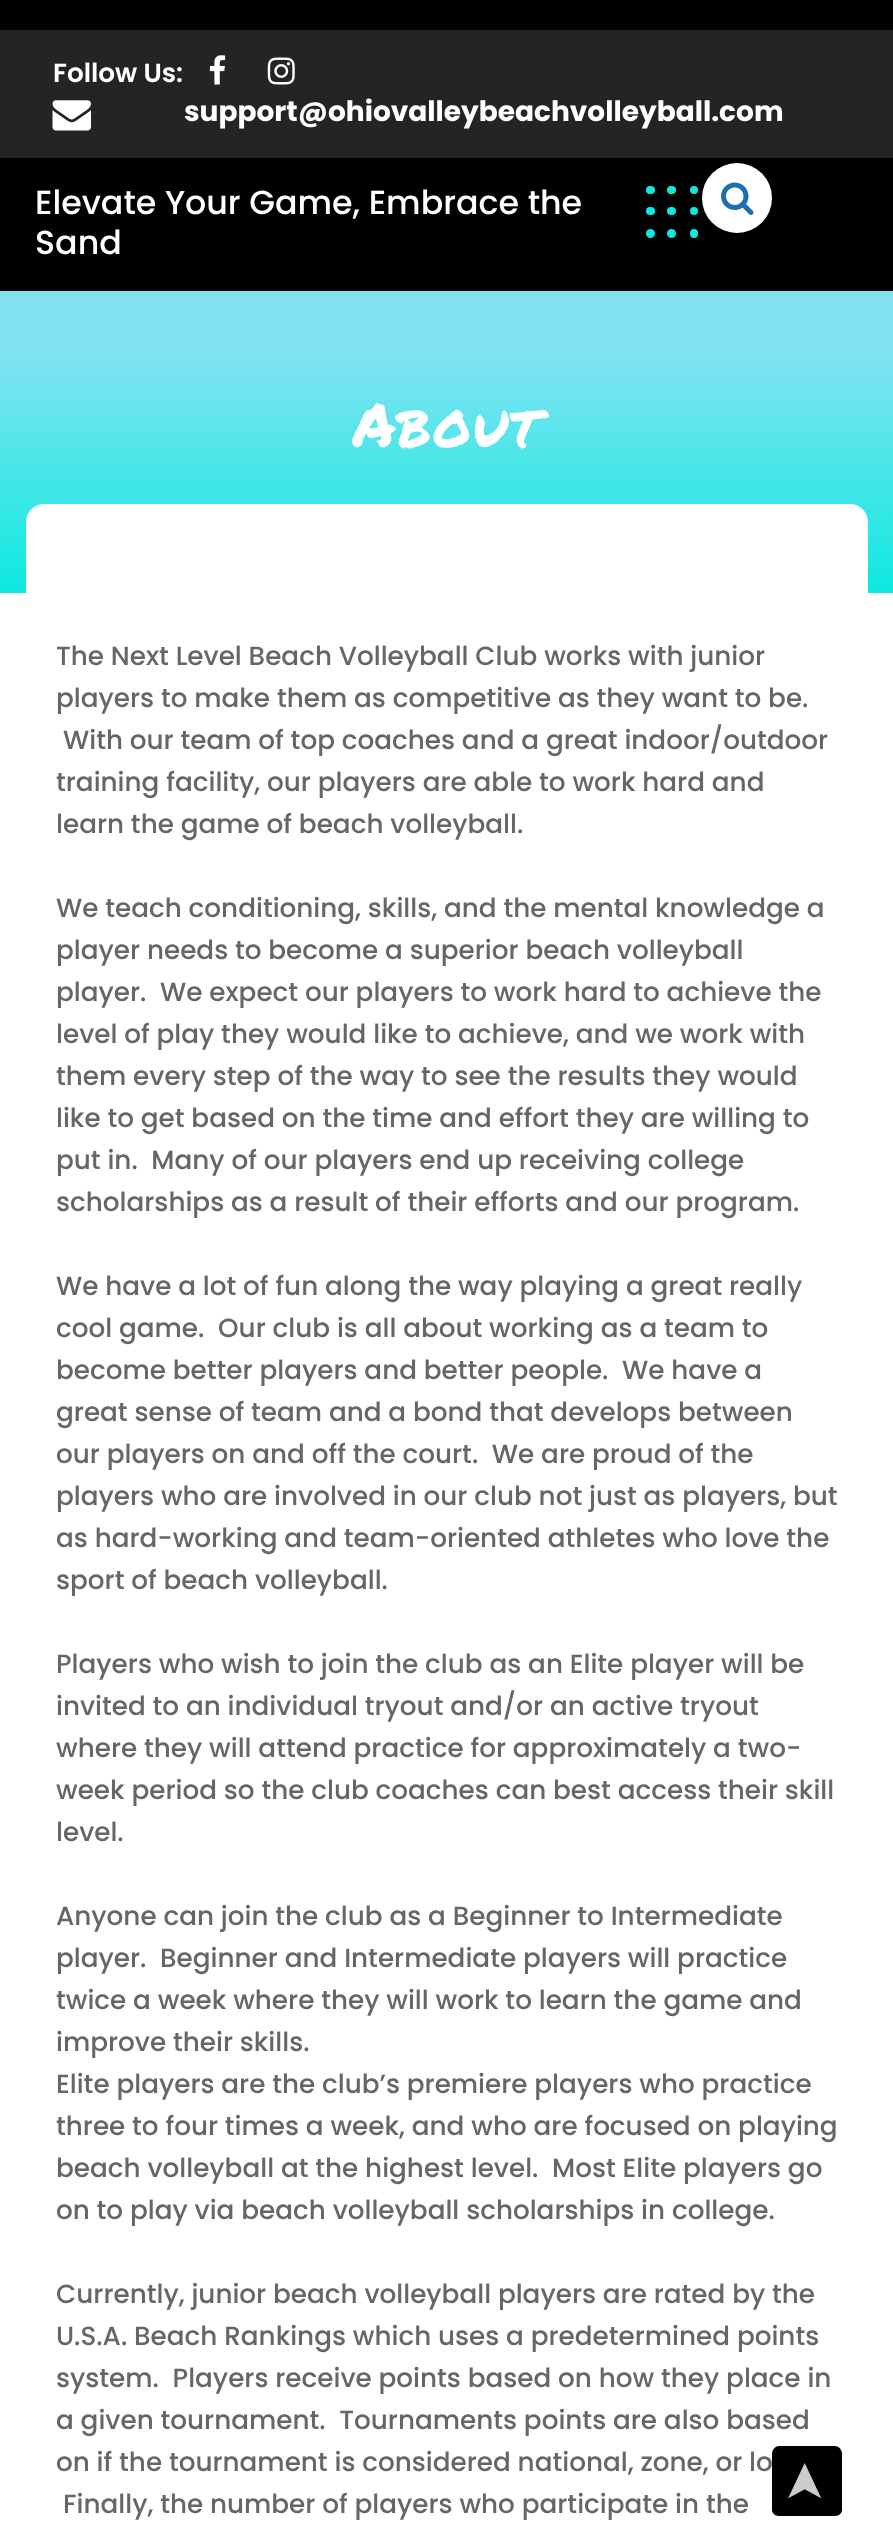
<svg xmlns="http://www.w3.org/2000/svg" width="893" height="2539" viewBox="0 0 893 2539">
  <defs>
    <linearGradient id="g1" gradientUnits="userSpaceOnUse" x1="447" y1="593" x2="447" y2="291"><stop offset="0" stop-color="#0de9df"/><stop offset="0.8" stop-color="#81e3f2"/></linearGradient>
  </defs>
  <rect width="100%" height="100%" fill="#000"/>
  <path d="M0 30h893v128H0z" fill="#242424"/>
  <image x="209" y="55" width="17" height="30" href="img/1.png"/>
  <image x="267" y="57" width="28" height="28" href="img/2.png"/>
  <image x="52" y="100" width="39" height="31" href="img/3.png"/>
  <rect x="646" y="186" width="9" height="8" rx="4" fill="#0de9df"/>
  <rect x="667" y="186" width="9" height="8" rx="4" fill="#0de9df"/>
  <circle cx="694" cy="190" r="4" fill="#0de9df"/>
  <rect x="646" y="207" width="9" height="8" rx="4" fill="#0de9df"/>
  <rect x="667" y="207" width="9" height="8" rx="4" fill="#0de9df"/>
  <circle cx="694" cy="211" r="4" fill="#0de9df"/>
  <circle cx="650.5" cy="233.5" r="4.5" fill="#0de9df"/>
  <circle cx="671.5" cy="233.5" r="4.5" fill="#0de9df"/>
  <rect x="690" y="229" width="8" height="9" rx="4" fill="#0de9df"/>
  <circle cx="737" cy="198" r="35" fill="#fff"/>
  <image x="721" y="182" width="33" height="33" href="img/4.png"/>
  <path d="M0 291h893v302H0z" fill="url(#g1)"/>
  <path d="M0 593h893v1946H0z" fill="#fff"/>
  <rect x="26" y="504" width="842" height="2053" rx="18" fill="#fff"/>
  <path d="M772 2510V2454C772 2450 775 2446 779 2446H835C839 2446 842 2450 842 2454V2510C842 2513 839 2516 835 2516H779C775 2516 772 2513 772 2510Z" fill="#000"/>
  <text x="53" y="82" font-family="Poppins" font-size="26.25" font-weight="600" fill="#fff">Follow Us:</text>
  <text x="184" y="121" font-family="Poppins" font-size="28" font-weight="bold" fill="#fff">support@ohiovalleybeachvolleyball.com</text>
  <g font-family="Poppins" font-size="33.25" font-weight="500" fill="#fff">
    <text x="35" y="214">Elevate Your Game, Embrace the</text>
    <text x="35" y="254">Sand</text>
  </g>
  <text x="353" y="447" font-family="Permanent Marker" font-size="61" letter-spacing="1.75" fill="#fff">About</text>
  <g font-family="Poppins" font-size="26.25" font-weight="500" fill="#666">
    <text x="56" y="665">The Next Level Beach Volleyball Club works with junior</text>
    <text x="56" y="707">players to make them as competitive as they want to be.</text>
    <text x="63" y="749">With our team of top coaches and a great indoor/outdoor</text>
    <text x="56" y="791">training facility, our players are able to work hard and</text>
    <text x="56" y="833">learn the game of beach volleyball.</text>
    <text x="56" y="917">We teach conditioning, skills, and the mental knowledge a</text>
    <text x="56" y="959">player needs to become a superior beach volleyball</text>
    <text x="56" y="1001" xml:space="preserve">player.  We expect our players to work hard to achieve the</text>
    <text x="56" y="1043">level of play they would like to achieve, and we work with</text>
    <text x="56" y="1085">them every step of the way to see the results they would</text>
    <text x="56" y="1127">like to get based on the time and effort they are willing to</text>
    <text x="56" y="1169" xml:space="preserve">put in.  Many of our players end up receiving college</text>
    <text x="56" y="1211">scholarships as a result of their efforts and our program.</text>
    <text x="56" y="1295">We have a lot of fun along the way playing a great really</text>
    <text x="56" y="1337" xml:space="preserve">cool game.  Our club is all about working as a team to</text>
    <text x="56" y="1379" xml:space="preserve">become better players and better people.  We have a</text>
    <text x="56" y="1421">great sense of team and a bond that develops between</text>
    <text x="56" y="1463" xml:space="preserve">our players on and off the court.  We are proud of the</text>
    <text x="56" y="1505">players who are involved in our club not just as players, but</text>
    <text x="56" y="1547">as hard-working and team-oriented athletes who love the</text>
    <text x="56" y="1589">sport of beach volleyball.</text>
    <text x="56" y="1673">Players who wish to join the club as an Elite player will be</text>
    <text x="56" y="1715">invited to an individual tryout and/or an active tryout</text>
    <text x="56" y="1757">where they will attend practice for approximately a two-</text>
    <text x="56" y="1799">week period so the club coaches can best access their skill</text>
    <text x="56" y="1841">level.</text>
    <text x="56" y="1925">Anyone can join the club as a Beginner to Intermediate</text>
    <text x="56" y="1967" xml:space="preserve">player.  Beginner and Intermediate players will practice</text>
    <text x="56" y="2009">twice a week where they will work to learn the game and</text>
    <text x="56" y="2051">improve their skills.</text>
    <text x="56" y="2093">Elite players are the club’s premiere players who practice</text>
    <text x="56" y="2135">three to four times a week, and who are focused on playing</text>
    <text x="56" y="2177" xml:space="preserve">beach volleyball at the highest level.  Most Elite players go</text>
    <text x="56" y="2219">on to play via beach volleyball scholarships in college.</text>
    <text x="56" y="2303">Currently, junior beach volleyball players are rated by the</text>
    <text x="56" y="2345">U.S.A. Beach Rankings which uses a predetermined points</text>
    <text x="56" y="2387" xml:space="preserve">system.  Players receive points based on how they place in</text>
    <text x="56" y="2429" xml:space="preserve">a given tournament.  Tournaments points are also based</text>
    <text x="56" y="2471">on if the tournament is considered national, zone, or lo</text>
    <text x="63" y="2513">Finally, the number of players who participate in the</text>
  </g>
  <text x="821" y="2504" transform="rotate(-90 821 2504)" font-family="DejaVu Sans" font-size="52" fill="#ccc">➤</text>
</svg>
